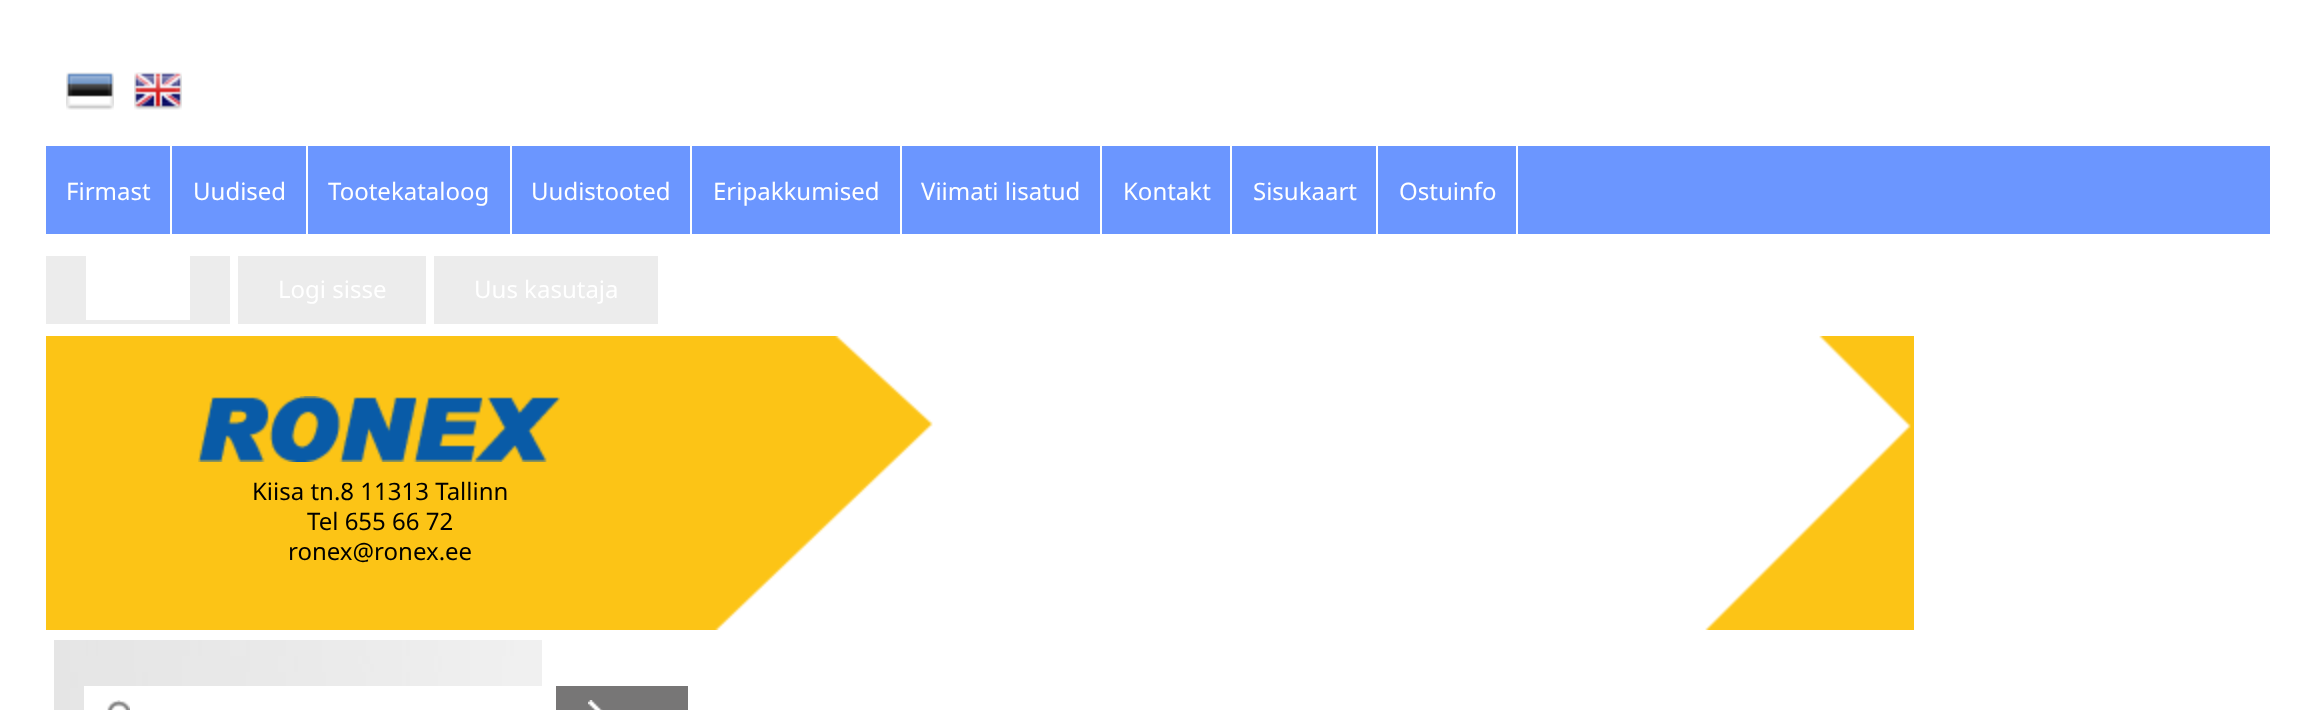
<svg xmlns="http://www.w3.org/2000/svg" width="2315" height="710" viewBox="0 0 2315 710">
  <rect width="100%" height="100%" fill="#fff"/>
  <image x="66" y="72" width="48" height="38" href="img/1.png"/>
  <image x="134" y="72" width="48" height="38" href="img/2.png"/>
  <path d="M46 146h2224v88H46z" fill="#6b96ff"/>
  <path d="M170 146h2v88H170z" fill="#fff"/>
  <path d="M306 146h2v88H306z" fill="#fff"/>
  <path d="M510 146h2v88H510z" fill="#fff"/>
  <path d="M690 146h2v88H690z" fill="#fff"/>
  <path d="M900 146h2v88H900z" fill="#fff"/>
  <path d="M1100 146h2v88H1100z" fill="#fff"/>
  <path d="M1230 146h2v88H1230z" fill="#fff"/>
  <path d="M1376 146h2v88H1376z" fill="#fff"/>
  <path d="M1516 146h2v88H1516z" fill="#fff"/>
  <path d="M46 256h184v68H46z" fill="#ececec"/>
  <path d="M86 256h104v64H86z" fill="#fff"/>
  <path d="M238 256h188v68H238z" fill="#ececec"/>
  <path d="M434 256h224v68H434z" fill="#ececec"/>
  <path d="M46 336h668v294H46z" fill="#fcc416"/>
  <image x="198" y="396" width="362" height="66" href="img/3.png"/>
  <image x="714" y="336" width="1200" height="294" href="img/4.png"/>
  <image x="54" y="640" width="488" height="70" href="img/5.png"/>
  <path d="M84 686h458v24H84z" fill="#fff"/>
  <image x="107" y="700" width="23" height="10" href="img/6.png"/>
  <path d="M556 686h132v24H556z" fill="#777676"/>
  <image x="588" y="700" width="15" height="10" href="img/7.png"/>
  <g font-family="Noto Sans" font-size="24" fill="#fff">
    <text x="66" y="200">Firmast</text>
    <text x="193" y="200">Uudised</text>
    <text x="328" y="200">Tootekataloog</text>
    <text x="531" y="200">Uudistooted</text>
    <text x="713" y="200">Eripakkumised</text>
    <text x="921" y="200">Viimati lisatud</text>
    <text x="1123" y="200">Kontakt</text>
    <text x="1253" y="200">Sisukaart</text>
    <text x="1399" y="200">Ostuinfo</text>
    <text x="278" y="298">Logi sisse</text>
    <text x="474" y="298">Uus kasutaja</text>
  </g>
  <g font-family="Noto Sans" font-size="24" fill="#000">
    <text x="252" y="500">Kiisa tn.8 11313 Tallinn</text>
    <text x="307" y="530">Tel 655 66 72</text>
    <text x="288" y="560">ronex@ronex.ee</text>
  </g>
</svg>
